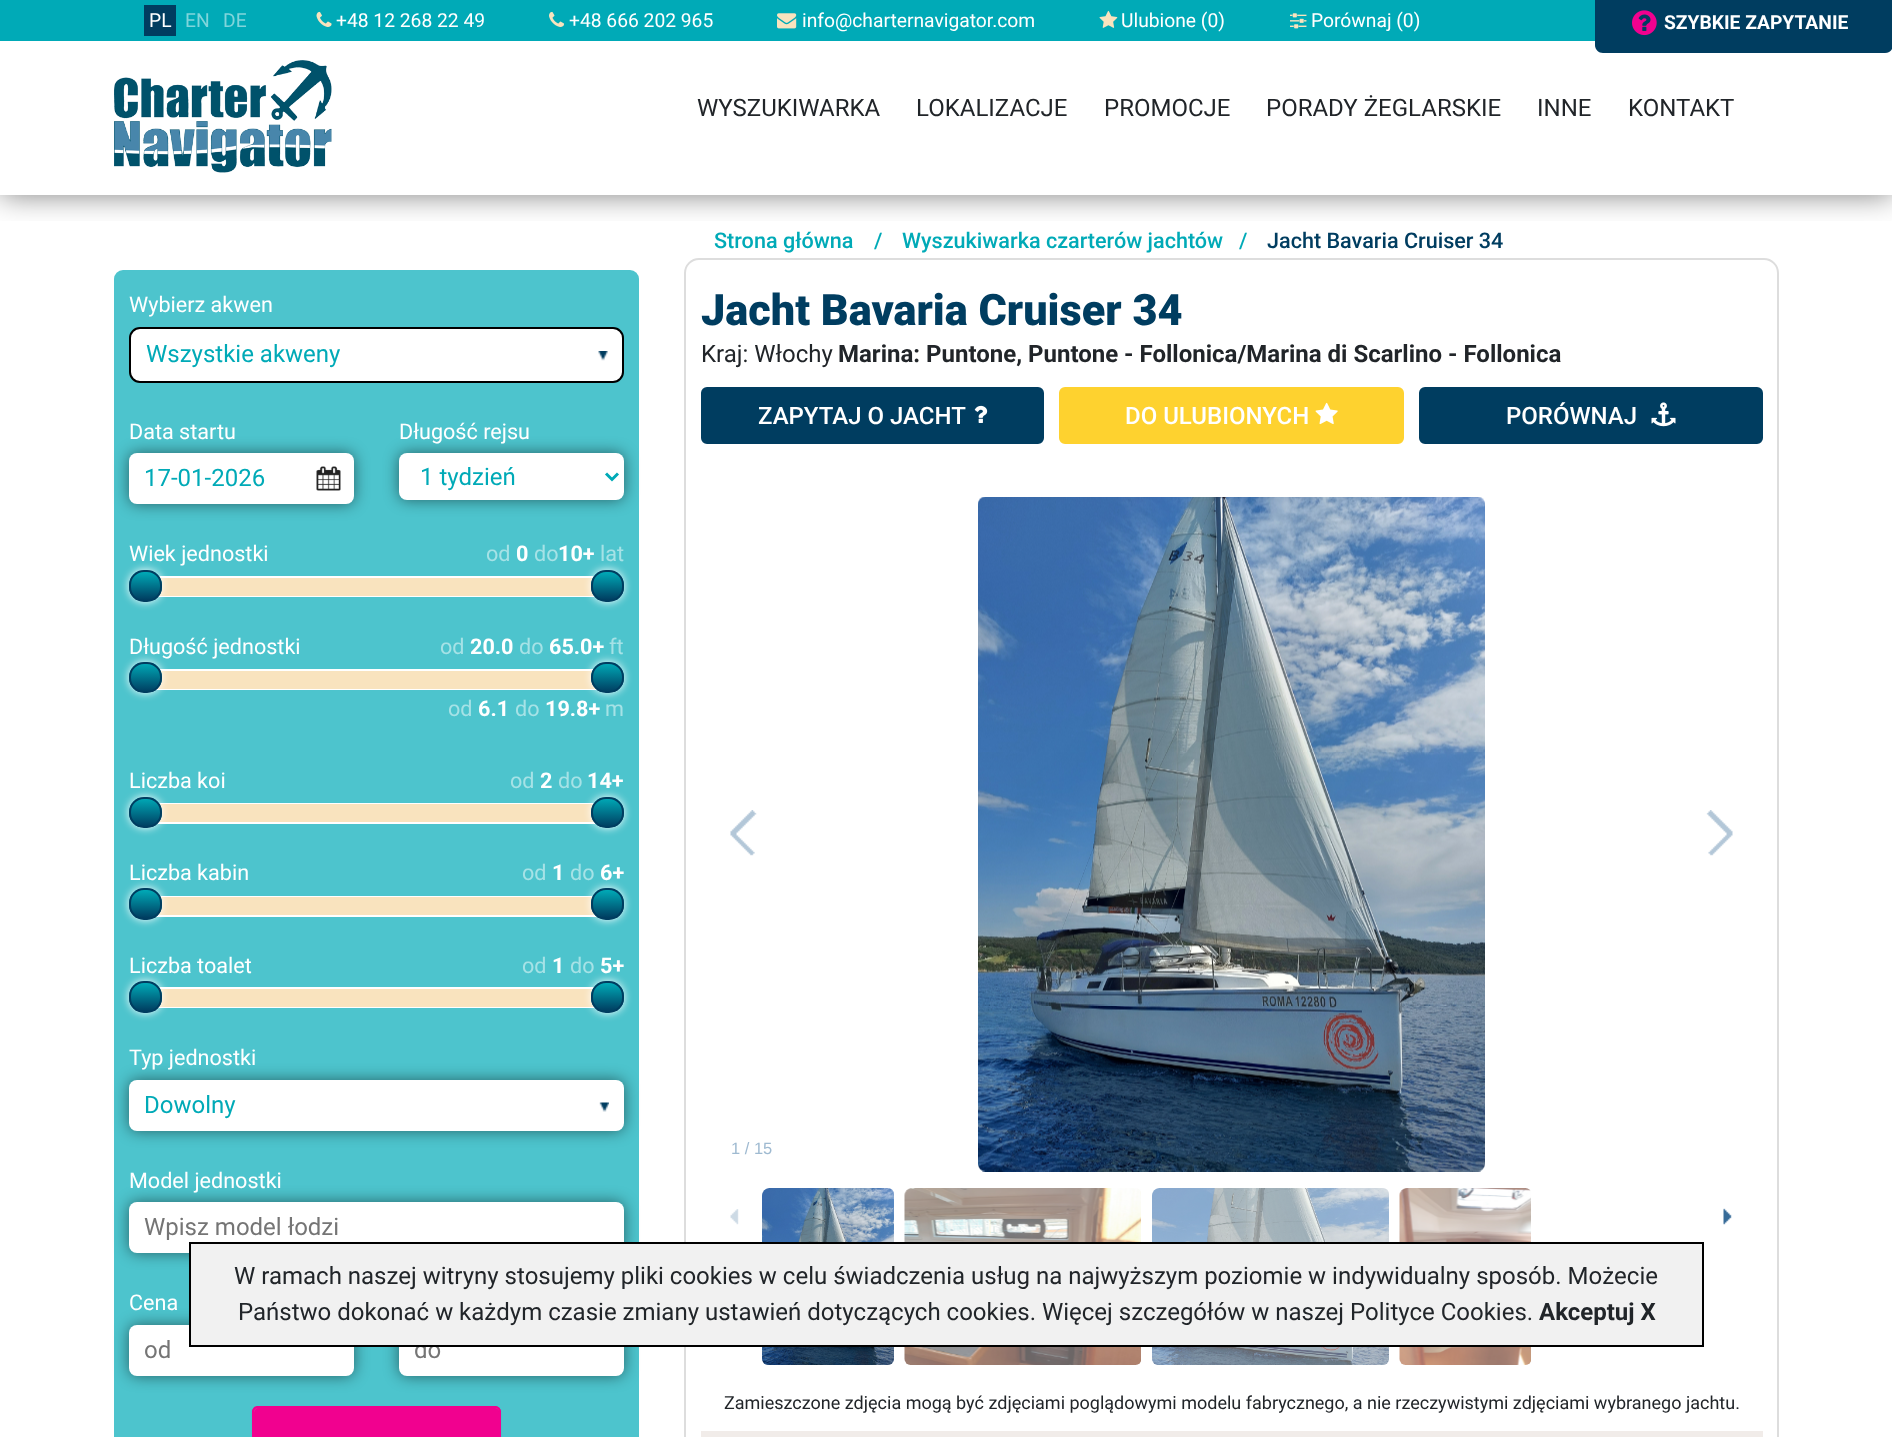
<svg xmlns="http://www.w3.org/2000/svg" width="1892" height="1437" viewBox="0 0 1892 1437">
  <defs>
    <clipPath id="clip1"><path d="M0 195h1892v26H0z"/></clipPath>
    <clipPath id="clip2"><rect x="129" y="570" width="33" height="32" rx="15"/></clipPath>
    <linearGradient id="g1" gradientUnits="userSpaceOnUse" x1="146" y1="600" x2="146" y2="572"><stop offset="0" stop-color="#003d60"/><stop offset="1" stop-color="#00aab7"/></linearGradient>
    <clipPath id="clip3"><rect x="591" y="570" width="33" height="32" rx="15"/></clipPath>
    <linearGradient id="g2" gradientUnits="userSpaceOnUse" x1="608" y1="600" x2="608" y2="572"><stop offset="0" stop-color="#003d60"/><stop offset="1" stop-color="#00aab7"/></linearGradient>
    <clipPath id="clip4"><rect x="129" y="662" width="33" height="31" rx="15"/></clipPath>
    <linearGradient id="g3" gradientUnits="userSpaceOnUse" x1="146" y1="692" x2="146" y2="663"><stop offset="0" stop-color="#003d60"/><stop offset="1" stop-color="#00aab7"/></linearGradient>
    <clipPath id="clip5"><rect x="591" y="662" width="33" height="31" rx="15"/></clipPath>
    <linearGradient id="g4" gradientUnits="userSpaceOnUse" x1="608" y1="692" x2="608" y2="663"><stop offset="0" stop-color="#003d60"/><stop offset="1" stop-color="#00aab7"/></linearGradient>
    <clipPath id="clip6"><rect x="129" y="797" width="33" height="31" rx="15"/></clipPath>
    <linearGradient id="g5" gradientUnits="userSpaceOnUse" x1="146" y1="827" x2="146" y2="798"><stop offset="0" stop-color="#003d60"/><stop offset="1" stop-color="#00aab7"/></linearGradient>
    <clipPath id="clip7"><rect x="591" y="797" width="33" height="31" rx="15"/></clipPath>
    <linearGradient id="g6" gradientUnits="userSpaceOnUse" x1="608" y1="827" x2="608" y2="798"><stop offset="0" stop-color="#003d60"/><stop offset="1" stop-color="#00aab7"/></linearGradient>
    <clipPath id="clip8"><rect x="129" y="888" width="33" height="32" rx="15"/></clipPath>
    <linearGradient id="g7" gradientUnits="userSpaceOnUse" x1="146" y1="918" x2="146" y2="890"><stop offset="0" stop-color="#003d60"/><stop offset="1" stop-color="#00aab7"/></linearGradient>
    <clipPath id="clip9"><rect x="591" y="888" width="33" height="32" rx="15"/></clipPath>
    <linearGradient id="g8" gradientUnits="userSpaceOnUse" x1="608" y1="918" x2="608" y2="890"><stop offset="0" stop-color="#003d60"/><stop offset="1" stop-color="#00aab7"/></linearGradient>
    <clipPath id="clip10"><rect x="129" y="981" width="33" height="32" rx="15"/></clipPath>
    <linearGradient id="g9" gradientUnits="userSpaceOnUse" x1="146" y1="1011" x2="146" y2="983"><stop offset="0" stop-color="#003d60"/><stop offset="1" stop-color="#00aab7"/></linearGradient>
    <clipPath id="clip11"><rect x="591" y="981" width="33" height="32" rx="15"/></clipPath>
    <linearGradient id="g10" gradientUnits="userSpaceOnUse" x1="608" y1="1011" x2="608" y2="983"><stop offset="0" stop-color="#003d60"/><stop offset="1" stop-color="#00aab7"/></linearGradient>
  </defs>
  <rect width="100%" height="100%" fill="#fff"/>
  <g clip-path="url(#clip1)">
    <path d="M0 0h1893v195H0z" fill="#00000080" filter="blur(15px)"/>
  </g>
  <path d="M0 0h1595v41H0z" fill="#00aab7"/>
  <path d="M144 5h32v31H144z" fill="#003d60"/>
  <image x="316" y="11" width="16" height="16" href="img/1.png"/>
  <image x="549" y="11" width="16" height="16" href="img/2.png"/>
  <image x="777" y="13" width="20" height="16" href="img/3.png"/>
  <image x="1099" y="10" width="19" height="18" href="img/4.png"/>
  <image x="1290" y="13" width="17" height="16" href="img/5.png"/>
  <path d="M1595-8H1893V45C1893 49.5 1889.5 53 1885 53H1603C1598.5 53 1595 49.5 1595 45Z" fill="#003d60"/>
  <image x="1632" y="10" width="25" height="26" href="img/6.png"/>
  <image x="114" y="60" width="218" height="113" href="img/7.png"/>
  <rect x="114" y="270" width="525" height="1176" rx="9" fill="#4dc4cd"/>
  <rect x="130" y="328" width="493" height="54" rx="10" fill="#fff" stroke="#000" stroke-width="2"/>
  <image x="598" y="351" width="10" height="10" href="img/8.png"/>
  <rect x="129" y="453" width="225" height="51" rx="8" fill="#00000080" filter="blur(7.5px)"/>
  <rect x="129" y="453" width="225" height="51" rx="8" fill="#fff"/>
  <image x="316" y="466" width="25" height="25" href="img/9.png"/>
  <rect x="399" y="453" width="225" height="47" rx="8" fill="#00000080" filter="blur(7.5px)"/>
  <rect x="399" y="453" width="225" height="47" rx="8" fill="#fff"/>
  <path d="M606 473.5L612 479.5L618 473.5" fill="none" stroke="#00aab7" stroke-width="3"/>
  <path d="M145 577h463v19H145z" fill="none" stroke="#fff" stroke-width="2"/>
  <path d="M159 578h435v18H159z" fill="#f9e3be"/>
  <rect x="129" y="570" width="33" height="32" rx="15" fill="#fff" filter="blur(4px)"/>
  <g clip-path="url(#clip2)">
    <path d="M129 572h33v28H129z" fill="url(#g1)"/>
  </g>
  <rect x="130" y="571" width="31" height="30" rx="14" fill="none" stroke="#003d60" stroke-width="2"/>
  <rect x="591" y="570" width="33" height="32" rx="15" fill="#fff" filter="blur(4px)"/>
  <g clip-path="url(#clip3)">
    <path d="M591 572h33v28H591z" fill="url(#g2)"/>
  </g>
  <rect x="592" y="571" width="31" height="30" rx="14" fill="none" stroke="#003d60" stroke-width="2"/>
  <path d="M145 670h463v19H145z" fill="none" stroke="#fff" stroke-width="2"/>
  <path d="M157 671h439v18H157z" fill="#f9e3be"/>
  <rect x="129" y="662" width="33" height="31" rx="15" fill="#fff" filter="blur(4px)"/>
  <g clip-path="url(#clip4)">
    <path d="M129 663h33v29H129z" fill="url(#g3)"/>
  </g>
  <rect x="130" y="663" width="31" height="29" rx="14" fill="none" stroke="#003d60" stroke-width="2"/>
  <rect x="591" y="662" width="33" height="31" rx="15" fill="#fff" filter="blur(4px)"/>
  <g clip-path="url(#clip5)">
    <path d="M591 663h33v29H591z" fill="url(#g4)"/>
  </g>
  <rect x="592" y="663" width="31" height="29" rx="14" fill="none" stroke="#003d60" stroke-width="2"/>
  <path d="M145 804h463v19H145z" fill="none" stroke="#fff" stroke-width="2"/>
  <path d="M159 804h435v18H159z" fill="#f9e3be"/>
  <rect x="129" y="797" width="33" height="31" rx="15" fill="#fff" filter="blur(4px)"/>
  <g clip-path="url(#clip6)">
    <path d="M129 798h33v29H129z" fill="url(#g5)"/>
  </g>
  <rect x="130" y="798" width="31" height="29" rx="14" fill="none" stroke="#003d60" stroke-width="2"/>
  <rect x="591" y="797" width="33" height="31" rx="15" fill="#fff" filter="blur(4px)"/>
  <g clip-path="url(#clip7)">
    <path d="M591 798h33v29H591z" fill="url(#g6)"/>
  </g>
  <rect x="592" y="798" width="31" height="29" rx="14" fill="none" stroke="#003d60" stroke-width="2"/>
  <path d="M145 897h463v19H145z" fill="none" stroke="#fff" stroke-width="2"/>
  <path d="M158 897h437v18H158z" fill="#f9e3be"/>
  <rect x="129" y="888" width="33" height="32" rx="15" fill="#fff" filter="blur(4px)"/>
  <g clip-path="url(#clip8)">
    <path d="M129 890h33v28H129z" fill="url(#g7)"/>
  </g>
  <rect x="130" y="889" width="31" height="30" rx="14" fill="none" stroke="#003d60" stroke-width="2"/>
  <rect x="591" y="888" width="33" height="32" rx="15" fill="#fff" filter="blur(4px)"/>
  <g clip-path="url(#clip9)">
    <path d="M591 890h33v28H591z" fill="url(#g8)"/>
  </g>
  <rect x="592" y="889" width="31" height="30" rx="14" fill="none" stroke="#003d60" stroke-width="2"/>
  <path d="M145 988h463v19H145z" fill="none" stroke="#fff" stroke-width="2"/>
  <path d="M159 989h435v18H159z" fill="#f9e3be"/>
  <rect x="129" y="981" width="33" height="32" rx="15" fill="#fff" filter="blur(4px)"/>
  <g clip-path="url(#clip10)">
    <path d="M129 983h33v28H129z" fill="url(#g9)"/>
  </g>
  <rect x="130" y="982" width="31" height="30" rx="14" fill="none" stroke="#003d60" stroke-width="2"/>
  <rect x="591" y="981" width="33" height="32" rx="15" fill="#fff" filter="blur(4px)"/>
  <g clip-path="url(#clip11)">
    <path d="M591 983h33v28H591z" fill="url(#g10)"/>
  </g>
  <rect x="592" y="982" width="31" height="30" rx="14" fill="none" stroke="#003d60" stroke-width="2"/>
  <rect x="129" y="1080" width="495" height="51" rx="8" fill="#00000080" filter="blur(7.5px)"/>
  <rect x="129" y="1080" width="495" height="51" rx="8" fill="#fff"/>
  <image x="599" y="1102" width="10" height="10" href="img/10.png"/>
  <rect x="129" y="1202" width="495" height="51" rx="8" fill="#00000080" filter="blur(7.5px)"/>
  <rect x="129" y="1202" width="495" height="51" rx="8" fill="#fff"/>
  <rect x="129" y="1325" width="225" height="51" rx="8" fill="#00000080" filter="blur(7.5px)"/>
  <rect x="129" y="1325" width="225" height="51" rx="8" fill="#fff"/>
  <rect x="399" y="1325" width="225" height="51" rx="8" fill="#00000080" filter="blur(7.5px)"/>
  <rect x="399" y="1325" width="225" height="51" rx="8" fill="#fff"/>
  <rect x="252" y="1407" width="249" height="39" rx="6" fill="#00000012" filter="blur(1px)"/>
  <rect x="252" y="1406" width="249" height="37" rx="6" fill="#f1018f"/>
  <path d="M258 1408H495C497 1408 500 1411 500 1413V1412C500 1409 498 1407 495 1407H259C256 1407 254 1409 254 1412V1413C254 1411 256 1408 258 1408Z" fill="#f327a0"/>
  <rect x="253" y="1407" width="247" height="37" rx="5" fill="none" stroke="#f1018f" stroke-width="2"/>
  <rect x="685" y="259" width="1093" height="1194" rx="14" fill="none" stroke="#ddd" stroke-width="2"/>
  <rect x="702" y="388" width="341" height="55" rx="5" fill="#003d60" stroke="#003d60" stroke-width="2"/>
  <image x="974" y="405" width="14" height="18" href="img/11.png"/>
  <rect x="1060" y="388" width="343" height="55" rx="5" fill="#fed22f" stroke="#fed22f" stroke-width="2"/>
  <image x="1315" y="402" width="23" height="23" href="img/12.png"/>
  <rect x="1420" y="388" width="342" height="55" rx="5" fill="#003d60" stroke="#003d60" stroke-width="2"/>
  <image x="1651" y="402" width="25" height="25" href="img/13.png"/>
  <image x="978" y="497" width="507" height="675" href="img/14.png"/>
  <image x="730" y="810" width="27" height="46" href="img/15.png"/>
  <image x="1706" y="810" width="27" height="46" href="img/16.png"/>
  <image x="730" y="1209" width="9" height="16" href="img/17.png"/>
  <image x="762" y="1188" width="132" height="177" href="img/18.png"/>
  <image x="904" y="1188" width="237" height="177" href="img/19.png"/>
  <image x="1152" y="1188" width="237" height="177" href="img/20.png"/>
  <image x="1399" y="1188" width="132" height="177" href="img/21.png"/>
  <image x="1723" y="1208" width="9" height="17" href="img/22.png"/>
  <path d="M701 1431h1062v6H701z" fill="#f1ece9"/>
  <text x="149" y="27" font-family="Roboto" font-size="19.25" fill="#fff">PL</text>
  <g font-family="Roboto" font-size="19.25" fill="#80d5db">
    <text x="185" y="27">EN</text>
    <text x="223" y="27">DE</text>
  </g>
  <g font-family="Roboto" font-size="19.25" fill="#fff">
    <text x="336" y="27">+48 12 268 22 49</text>
    <text x="569" y="27">+48 666 202 965</text>
    <text x="802" y="27">info@charternavigator.com</text>
    <text x="1121" y="27">Ulubione (0)</text>
    <text x="1311" y="27">Porównaj (0)</text>
  </g>
  <text x="1664" y="29" font-family="Roboto" font-size="19.25" font-weight="bold" fill="#fff">SZYBKIE ZAPYTANIE</text>
  <g font-family="Roboto" font-size="24" fill="#212529">
    <text x="697" y="116">WYSZUKIWARKA</text>
    <text x="916" y="116">LOKALIZACJE</text>
    <text x="1104" y="116">PROMOCJE</text>
    <text x="1266" y="116">PORADY ŻEGLARSKIE</text>
    <text x="1537" y="116">INNE</text>
    <text x="1628" y="116">KONTAKT</text>
  </g>
  <text x="129" y="312" font-family="Roboto" font-size="21.6" fill="#fff">Wybierz akwen</text>
  <text x="146" y="362" font-family="Roboto" font-size="24" fill="#00aab7">Wszystkie akweny</text>
  <text x="129" y="439" font-family="Roboto" font-size="21.6" fill="#fff">Data startu</text>
  <text x="144" y="486" font-family="Roboto" font-size="24" fill="#00aab7">17-01-2026</text>
  <text x="399" y="439" font-family="Roboto" font-size="21.6" fill="#fff">Długość rejsu</text>
  <text x="420" y="485" font-family="Roboto" font-size="24" fill="#00aab7">1 tydzień</text>
  <text x="129" y="561" font-family="Roboto" font-size="21.6" fill="#fff">Wiek jednostki</text>
  <text x="486" y="561" font-family="Roboto" font-size="21.6" fill="#a6e2e6">od</text>
  <text x="516" y="561" font-family="Roboto" font-size="21.6" font-weight="bold" fill="#fff">0</text>
  <text x="534" y="561" font-family="Roboto" font-size="21.6" fill="#a6e2e6">do</text>
  <text x="558" y="561" font-family="Roboto" font-size="21.6" font-weight="bold" fill="#fff">10+</text>
  <text x="600" y="561" font-family="Roboto" font-size="21.6" fill="#a6e2e6">lat</text>
  <text x="129" y="654" font-family="Roboto" font-size="21.6" fill="#fff">Długość jednostki</text>
  <text x="440" y="654" font-family="Roboto" font-size="21.6" fill="#a6e2e6">od</text>
  <text x="470" y="654" font-family="Roboto" font-size="21.6" font-weight="bold" fill="#fff">20.0</text>
  <text x="519" y="654" font-family="Roboto" font-size="21.6" fill="#a6e2e6">do</text>
  <text x="549" y="654" font-family="Roboto" font-size="21.6" font-weight="bold" fill="#fff">65.0+</text>
  <g font-family="Roboto" font-size="21.6" fill="#a6e2e6">
    <text x="609" y="654">ft</text>
    <text x="448" y="716">od</text>
  </g>
  <text x="478" y="716" font-family="Roboto" font-size="21.6" font-weight="bold" fill="#fff">6.1</text>
  <text x="515" y="716" font-family="Roboto" font-size="21.6" fill="#a6e2e6">do</text>
  <text x="545" y="716" font-family="Roboto" font-size="21.6" font-weight="bold" fill="#fff">19.8+</text>
  <text x="605" y="716" font-family="Roboto" font-size="21.6" fill="#a6e2e6">m</text>
  <text x="129" y="788" font-family="Roboto" font-size="21.6" fill="#fff">Liczba koi</text>
  <text x="510" y="788" font-family="Roboto" font-size="21.6" fill="#a6e2e6">od</text>
  <text x="540" y="788" font-family="Roboto" font-size="21.6" font-weight="bold" fill="#fff">2</text>
  <text x="558" y="788" font-family="Roboto" font-size="21.6" fill="#a6e2e6">do</text>
  <text x="587" y="788" font-family="Roboto" font-size="21.6" font-weight="bold" fill="#fff">14+</text>
  <text x="129" y="880" font-family="Roboto" font-size="21.6" fill="#fff">Liczba kabin</text>
  <text x="522" y="880" font-family="Roboto" font-size="21.6" fill="#a6e2e6">od</text>
  <text x="552" y="880" font-family="Roboto" font-size="21.6" font-weight="bold" fill="#fff">1</text>
  <text x="570" y="880" font-family="Roboto" font-size="21.6" fill="#a6e2e6">do</text>
  <text x="600" y="880" font-family="Roboto" font-size="21.6" font-weight="bold" fill="#fff">6+</text>
  <text x="129" y="973" font-family="Roboto" font-size="21.6" fill="#fff">Liczba toalet</text>
  <text x="522" y="973" font-family="Roboto" font-size="21.6" fill="#a6e2e6">od</text>
  <text x="552" y="973" font-family="Roboto" font-size="21.6" font-weight="bold" fill="#fff">1</text>
  <text x="570" y="973" font-family="Roboto" font-size="21.6" fill="#a6e2e6">do</text>
  <text x="600" y="973" font-family="Roboto" font-size="21.6" font-weight="bold" fill="#fff">5+</text>
  <text x="129" y="1065" font-family="Roboto" font-size="21.6" fill="#fff">Typ jednostki</text>
  <text x="144" y="1113" font-family="Roboto" font-size="24" fill="#00aab7">Dowolny</text>
  <text x="129" y="1188" font-family="Roboto" font-size="21.6" fill="#fff">Model jednostki</text>
  <text x="144" y="1235" font-family="Roboto" font-size="24" fill="#757575">Wpisz model łodzi</text>
  <text x="129" y="1310" font-family="Roboto" font-size="21.6" fill="#fff">Cena</text>
  <g font-family="Roboto" font-size="24" fill="#757575">
    <text x="144" y="1358">od</text>
    <text x="414" y="1358">do</text>
  </g>
  <g font-family="Roboto" font-size="21.6" font-weight="500" fill="#00aab7">
    <text x="714" y="248">Strona główna</text>
    <text x="874" y="248">/</text>
    <text x="902" y="248">Wyszukiwarka czarterów jachtów</text>
    <text x="1239" y="248">/</text>
  </g>
  <text x="1267" y="248" font-family="Roboto" font-size="21.6" font-weight="500" fill="#003d60">Jacht Bavaria Cruiser 34</text>
  <text x="701" y="325" font-family="Roboto" font-size="43.25" font-weight="900" fill="#003d60">Jacht Bavaria Cruiser 34</text>
  <text x="701" y="362" font-family="Roboto" font-size="24" fill="#212529">Kraj: Włochy</text>
  <text x="838" y="362" font-family="Roboto" font-size="24" font-weight="bold" fill="#212529">Marina: Puntone, Puntone - Follonica/Marina di Scarlino - Follonica</text>
  <g font-family="Roboto" font-size="24" font-weight="500" fill="#fff">
    <text x="758" y="424">ZAPYTAJ O JACHT</text>
    <text x="1125" y="424">DO ULUBIONYCH</text>
    <text x="1506" y="424">PORÓWNAJ</text>
  </g>
  <text x="731" y="1154" font-family="Liberation Sans" font-size="16.5" fill="#9fbad1">1 / 15</text>
  <text x="724" y="1409" font-family="Roboto" font-size="18" fill="#212529">Zamieszczone zdjęcia mogą być zdjęciami poglądowymi modelu fabrycznego, a nie rzeczywistymi zdjęciami wybranego jachtu.</text>
  <path d="M190 1243h1513v103H190z" fill="#f1f1f1" stroke="#000" stroke-width="2"/>
  <g font-family="Roboto" font-size="24" fill="#212529">
    <text x="234" y="1284">W ramach naszej witryny stosujemy pliki cookies w celu świadczenia usług na najwyższym poziomie w indywidualny sposób. Możecie</text>
    <text x="238" y="1320">Państwo dokonać w każdym czasie zmiany ustawień dotyczących cookies. Więcej szczegółów w naszej Polityce Cookies.</text>
  </g>
  <text x="1539" y="1320" font-family="Roboto" font-size="24" font-weight="bold" fill="#212529">Akceptuj X</text>
</svg>
